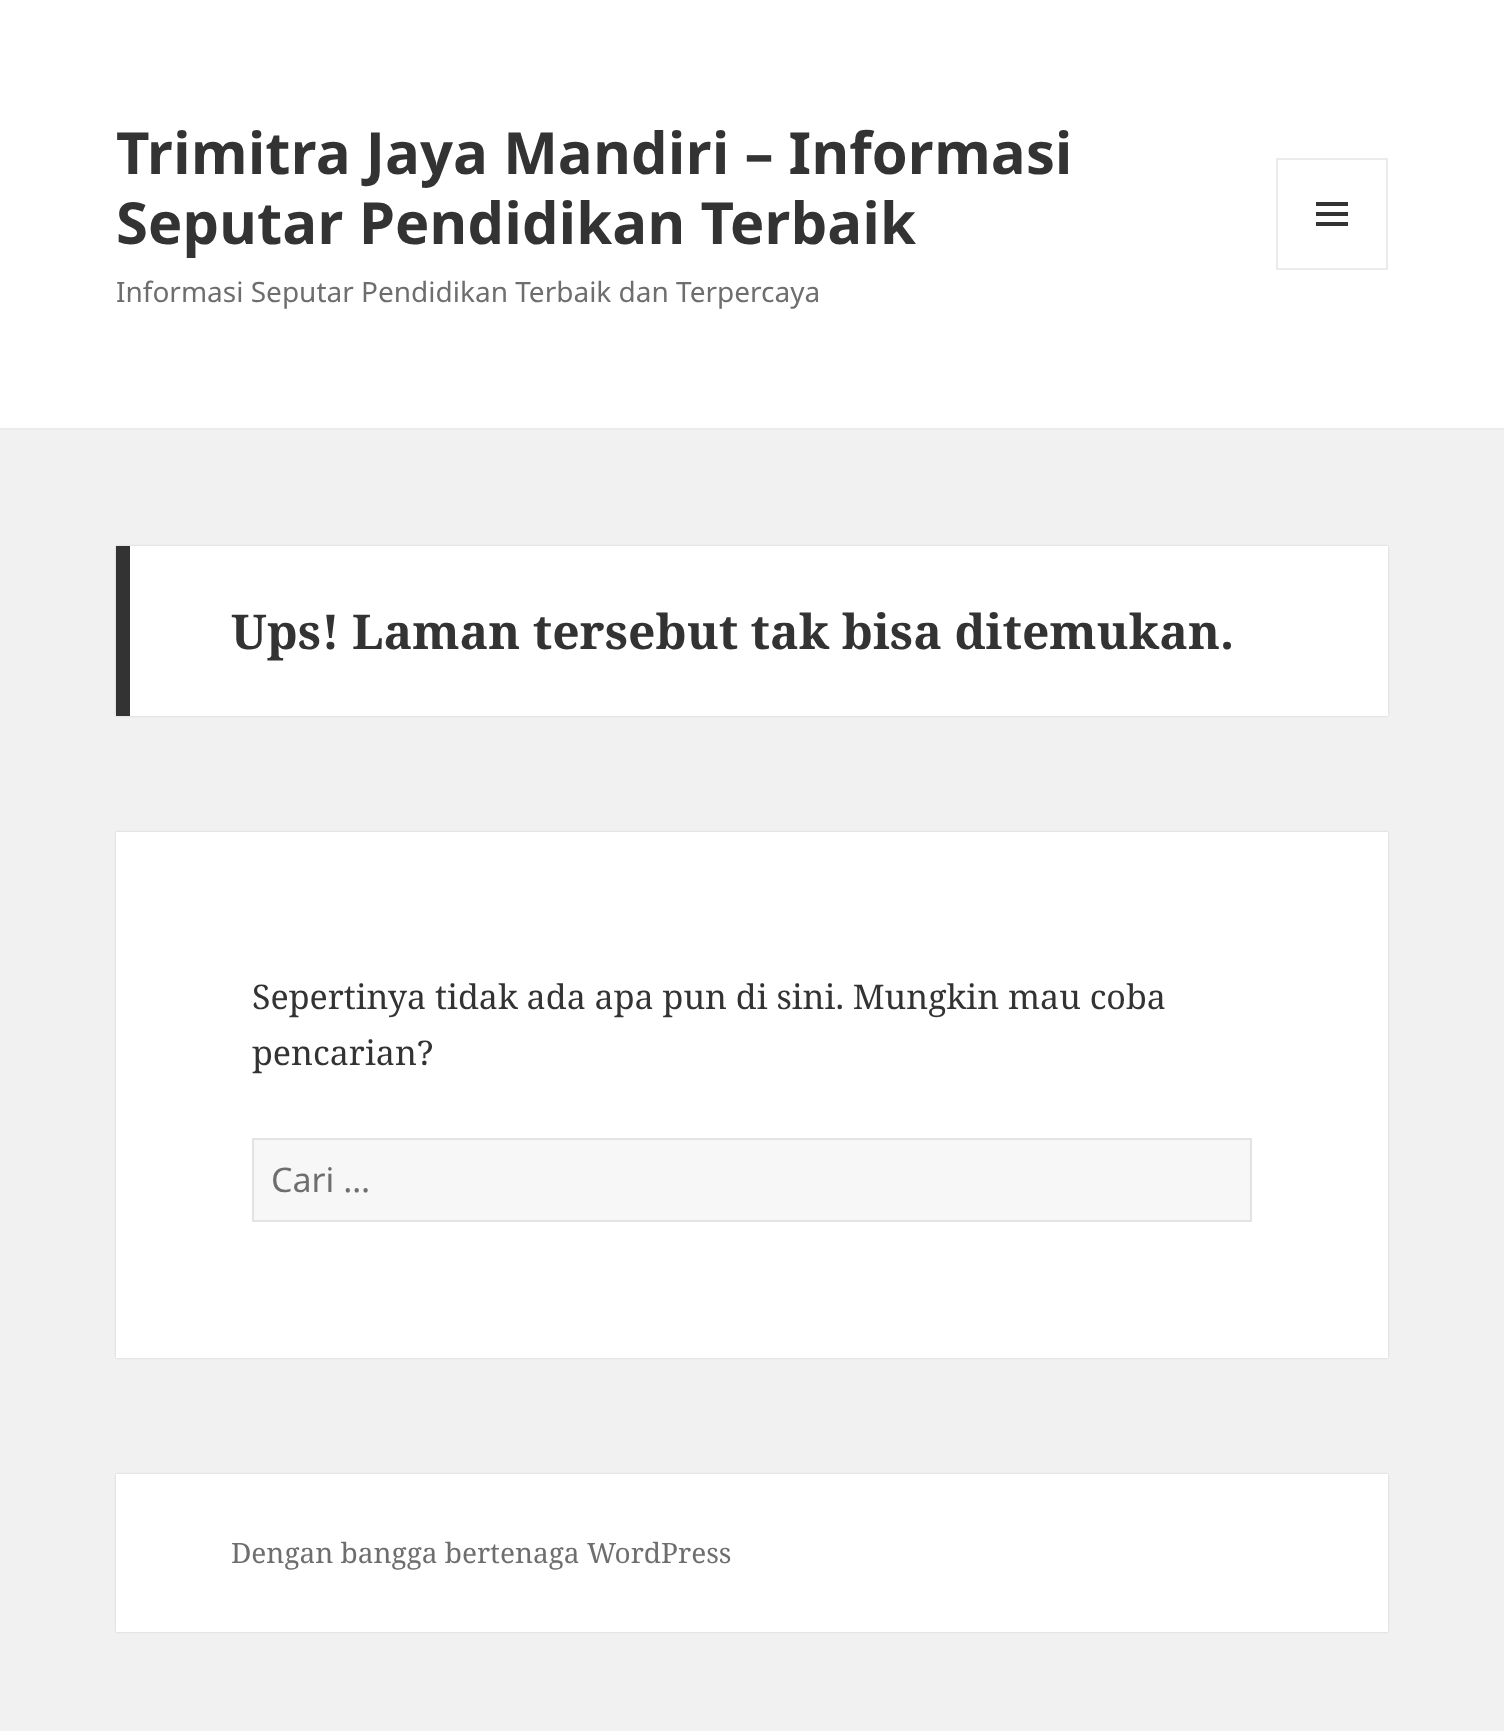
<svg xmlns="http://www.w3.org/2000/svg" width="1504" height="1731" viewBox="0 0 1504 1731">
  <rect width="100%" height="100%" fill="#f1f1f1"/>
  <path d="M0 0h1504v428H0z" fill="#fff"/>
  <path d="M0 428h1504v2H0z" fill="#ebebeb"/>
  <path d="M1277 159h110v110H1277z" fill="none" stroke="#ebebeb" stroke-width="2"/>
  <image x="1316" y="202" width="32" height="24" href="img/1.png"/>
  <path d="M116 546h1272v170H116z" fill="#00000026" filter="blur(1px)"/>
  <path d="M130 546h1258v170H130z" fill="#fff"/>
  <path d="M116 546h14v170H116z" fill="#333"/>
  <path d="M116 832h1272v526H116z" fill="#00000026" filter="blur(1px)"/>
  <path d="M116 832h1272v526H116z" fill="#fff"/>
  <path d="M253 1139h998v82H253z" fill="#f7f7f7" stroke="#e3e3e3" stroke-width="2"/>
  <path d="M116 1474h1272v158H116z" fill="#00000026" filter="blur(1px)"/>
  <path d="M116 1474h1272v158H116z" fill="#fff"/>
  <g font-family="Noto Sans" font-size="58" font-weight="bold" fill="#333">
    <text x="116" y="174">Trimitra Jaya Mandiri – Informasi</text>
    <text x="116" y="244">Seputar Pendidikan Terbaik</text>
  </g>
  <text x="116" y="302" font-family="Noto Sans" font-size="28" fill="#6e6e6e">Informasi Seputar Pendidikan Terbaik dan Terpercaya</text>
  <text x="231" y="649" font-family="Noto Serif" font-size="48" font-weight="bold" fill="#333">Ups! Laman tersebut tak bisa ditemukan.</text>
  <g font-family="Noto Serif" font-size="34" fill="#333">
    <text x="252" y="1009">Sepertinya tidak ada apa pun di sini. Mungkin mau coba</text>
    <text x="252" y="1065">pencarian?</text>
  </g>
  <text x="271" y="1192" font-family="Noto Sans" font-size="34" fill="#6e6e6e">Cari …</text>
  <text x="231" y="1563" font-family="Noto Serif" font-size="28" fill="#6e6e6e">Dengan bangga bertenaga WordPress</text>
</svg>
